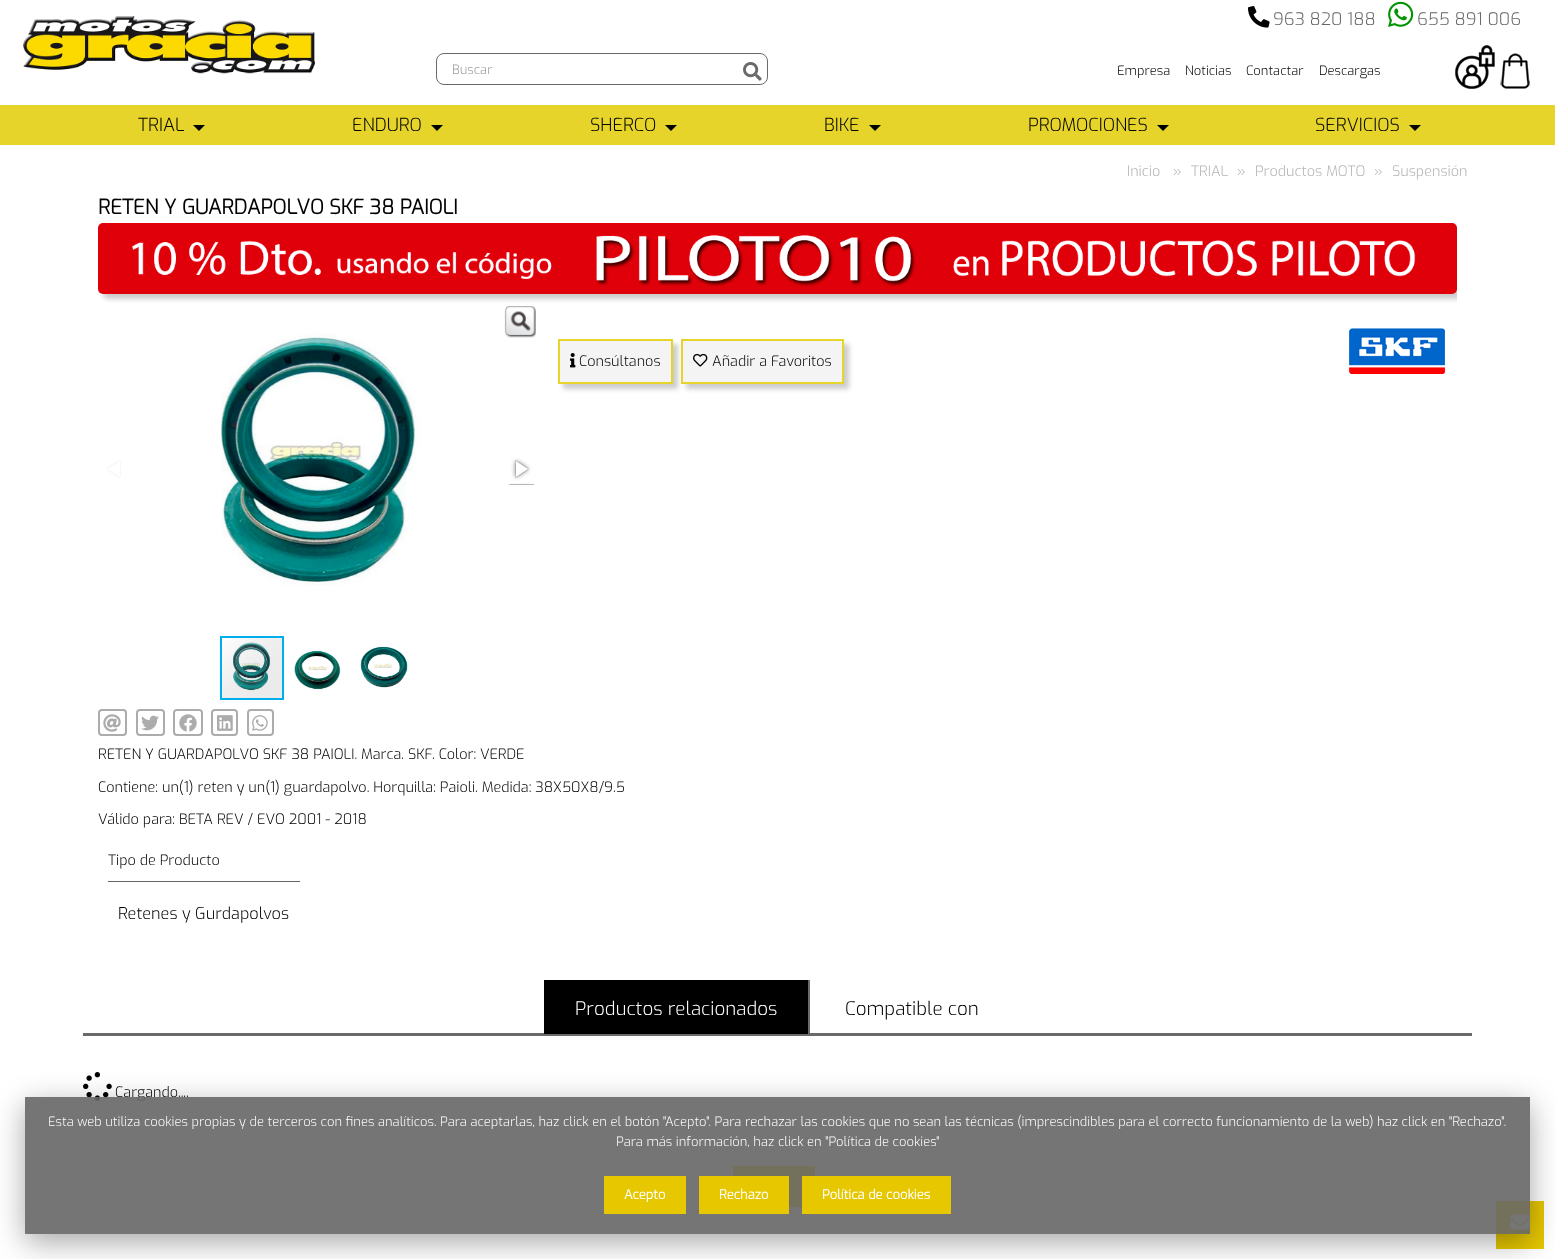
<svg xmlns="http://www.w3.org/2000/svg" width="1555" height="1259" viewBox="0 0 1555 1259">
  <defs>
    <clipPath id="clip1"><path d="M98 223h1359v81H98z"/></clipPath>
    <clipPath id="clip2"><path d="M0 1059H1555V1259H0ZM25 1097H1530V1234H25Z" clip-rule="evenodd"/></clipPath>
  </defs>
  <rect width="100%" height="100%" fill="#fff"/>
  <image x="1248" y="6" width="22" height="22" href="img/1.png"/>
  <image x="1388" y="1" width="26" height="26" href="img/2.png"/>
  <image x="23" y="16" width="292" height="58" href="img/3.png"/>
  <rect x="436.5" y="53.5" width="331" height="31" rx="7.5" fill="none" stroke="#696a6c"/>
  <image x="743" y="62" width="19" height="19" href="img/4.png"/>
  <image x="1455" y="45" width="40" height="44" href="img/5.png"/>
  <image x="1500" y="53" width="30" height="36" href="img/6.png"/>
  <path d="M0 105h1555v40H0z" fill="#e6d42a"/>
  <path d="M193 125H205L199 131Z" fill="#000"/>
  <path d="M431 125H443L437 131Z" fill="#000"/>
  <path d="M665 125H677L671 131Z" fill="#000"/>
  <path d="M869 125H881L875 131Z" fill="#000"/>
  <path d="M1157 125H1169L1163 131Z" fill="#000"/>
  <path d="M1409 125H1421L1415 131Z" fill="#000"/>
  <g clip-path="url(#clip1)">
    <rect x="103" y="228" width="1359" height="71" rx="5" fill="#00000033" filter="blur(2.5px)"/>
  </g>
  <image x="98" y="223" width="1359" height="71" href="img/7.png"/>
  <image x="504" y="306" width="32" height="32" href="img/8.png"/>
  <image x="107" y="460" width="14" height="18" href="img/9.png"/>
  <image x="221" y="333" width="199" height="253" href="img/10.png"/>
  <image x="508" y="458" width="27" height="27" href="img/11.png"/>
  <image x="222" y="638" width="60" height="60" href="img/14.png"/>
  <path d="M221 637h62v62H221z" fill="none" stroke="#00afea" stroke-width="2"/>
  <image x="286" y="636" width="64" height="64" href="img/12.png"/>
  <image x="352" y="636" width="64" height="64" href="img/13.png"/>
  <rect x="99" y="710" width="27" height="25" rx="3" fill="none" stroke="#acacac" stroke-width="2"/>
  <image x="103" y="714" width="18" height="18" href="img/15.png"/>
  <rect x="137" y="710" width="27" height="25" rx="3" fill="none" stroke="#acacac" stroke-width="2"/>
  <image x="141" y="715" width="18" height="16" href="img/16.png"/>
  <rect x="174" y="710" width="28" height="25" rx="3" fill="none" stroke="#acacac" stroke-width="2"/>
  <image x="179" y="714" width="18" height="18" href="img/17.png"/>
  <rect x="212" y="710" width="25" height="25" rx="3" fill="none" stroke="#acacac" stroke-width="2"/>
  <image x="217" y="715" width="16" height="16" href="img/18.png"/>
  <rect x="248" y="710" width="25" height="25" rx="3" fill="none" stroke="#acacac" stroke-width="2"/>
  <image x="252" y="715" width="16" height="16" href="img/19.png"/>
  <path d="M563 344h115v45H563z" fill="#ccc" filter="blur(2.5px)"/>
  <path d="M559 340h113v43H559z" fill="#f4f4f4" stroke="#e6d42a" stroke-width="2"/>
  <image x="570" y="353" width="6" height="15" href="img/20.png"/>
  <path d="M686 344h163v45H686z" fill="#ccc" filter="blur(2.5px)"/>
  <path d="M682 340h161v43H682z" fill="#f4f4f4" stroke="#e6d42a" stroke-width="2"/>
  <image x="693" y="353" width="15" height="14" href="img/21.png"/>
  <image x="1349" y="328" width="96" height="46" href="img/22.png"/>
  <path d="M108 881h192v1H108z" fill="#666"/>
  <path d="M83 1033h1389v3H83z" fill="#696a6c"/>
  <path d="M808 980h2v54H808z" fill="#696a6c"/>
  <path d="M544 980h264v54H544z" fill="#000"/>
  <image x="83" y="1072" width="29" height="29" href="img/23.png"/>
  <path d="M733 1166h82v41H733z" fill="#e6c700"/>
  <path d="M1496 1201h48v48H1496z" fill="#e6c700"/>
  <image x="1510" y="1214" width="20" height="16" href="img/24.png"/>
  <g clip-path="url(#clip2)">
    <path d="M25 1105h1505v137H25z" fill="#00000059" filter="blur(15px)"/>
  </g>
  <g font-family="Exo" font-size="17.25" font-weight="300" fill="#666">
    <text x="1273" y="25">963 820 188</text>
    <text x="1417" y="25">655 891 006</text>
  </g>
  <text x="452" y="74" font-family="Exo" font-size="12.96" font-weight="300" fill="#999">Buscar</text>
  <g font-family="Exo" font-size="12.96" font-weight="300" fill="#000">
    <text x="1117" y="75">Empresa</text>
    <text x="1185" y="75">Noticias</text>
    <text x="1246" y="75">Contactar</text>
    <text x="1319" y="75">Descargas</text>
  </g>
  <g font-family="Exo" font-size="18" font-weight="300" fill="#000">
    <text x="138" y="131">TRIAL</text>
    <text x="352" y="131">ENDURO</text>
    <text x="590" y="131">SHERCO</text>
    <text x="824" y="131">BIKE</text>
    <text x="1028" y="131">PROMOCIONES</text>
    <text x="1315" y="131">SERVICIOS</text>
  </g>
  <g font-family="Exo" font-size="14.4" font-weight="300" fill="#b2b2b2">
    <text x="1127" y="176">Inicio</text>
    <text x="1173" y="176">»</text>
    <text x="1191" y="176">TRIAL</text>
    <text x="1237" y="176">»</text>
    <text x="1255" y="176">Productos MOTO</text>
    <text x="1374" y="176">»</text>
    <text x="1392" y="176">Suspensión</text>
  </g>
  <text x="98" y="214" font-family="Exo" font-size="20.2" font-weight="bold" fill="#000">RETEN Y GUARDAPOLVO SKF 38 PAIOLI</text>
  <g font-family="Exo" font-size="14.4" font-weight="300" fill="#000">
    <text x="579" y="366">Consúltanos</text>
    <text x="712" y="366">Añadir a Favoritos</text>
    <text x="98" y="759">RETEN Y GUARDAPOLVO SKF 38 PAIOLI. Marca. SKF. Color: VERDE</text>
    <text x="98" y="792">Contiene: un(1) reten y un(1) guardapolvo. Horquilla: Paioli. Medida: 38X50X8/9.5</text>
    <text x="98" y="824">Válido para: BETA REV / EVO 2001 - 2018</text>
    <text x="108" y="865">Tipo de Producto</text>
  </g>
  <text x="118" y="919" font-family="Exo" font-size="16.25" font-weight="300" fill="#000">Retenes y Gurdapolvos</text>
  <text x="575" y="1015" font-family="Exo" font-size="18.75" font-weight="300" fill="#fff">Productos relacionados</text>
  <text x="845" y="1015" font-family="Exo" font-size="18.75" font-weight="300" fill="#000">Compatible con</text>
  <text x="115" y="1097" font-family="Exo" font-size="14.4" font-weight="300" fill="#000">Cargando....</text>
  <path d="M25 1097h1505v137H25z" fill="#666666e6"/>
  <g font-family="Exo" font-size="12.96" font-weight="300" fill="#fff">
    <text x="48" y="1126">Esta web utiliza cookies propias y de terceros con fines analíticos. Para aceptarlas, haz click en el botón "Acepto". Para rechazar las cookies que no sean las técnicas (imprescindibles para el correcto funcionamiento de la web) haz click en "Rechazo".</text>
    <text x="616" y="1146">Para más información, haz click en "Política de cookies"</text>
  </g>
  <path d="M604 1176h82v38H604z" fill="#e6c700"/>
  <text x="624" y="1199" font-family="Exo" font-size="12.96" font-weight="bold" fill="#fff">Acepto</text>
  <path d="M699 1176h90v38H699z" fill="#e6c700"/>
  <text x="719" y="1199" font-family="Exo" font-size="12.96" font-weight="bold" fill="#fff">Rechazo</text>
  <path d="M802 1176h149v38H802z" fill="#e6c700"/>
  <text x="822" y="1199" font-family="Exo" font-size="12.96" font-weight="bold" fill="#fff">Política de cookies</text>
</svg>
